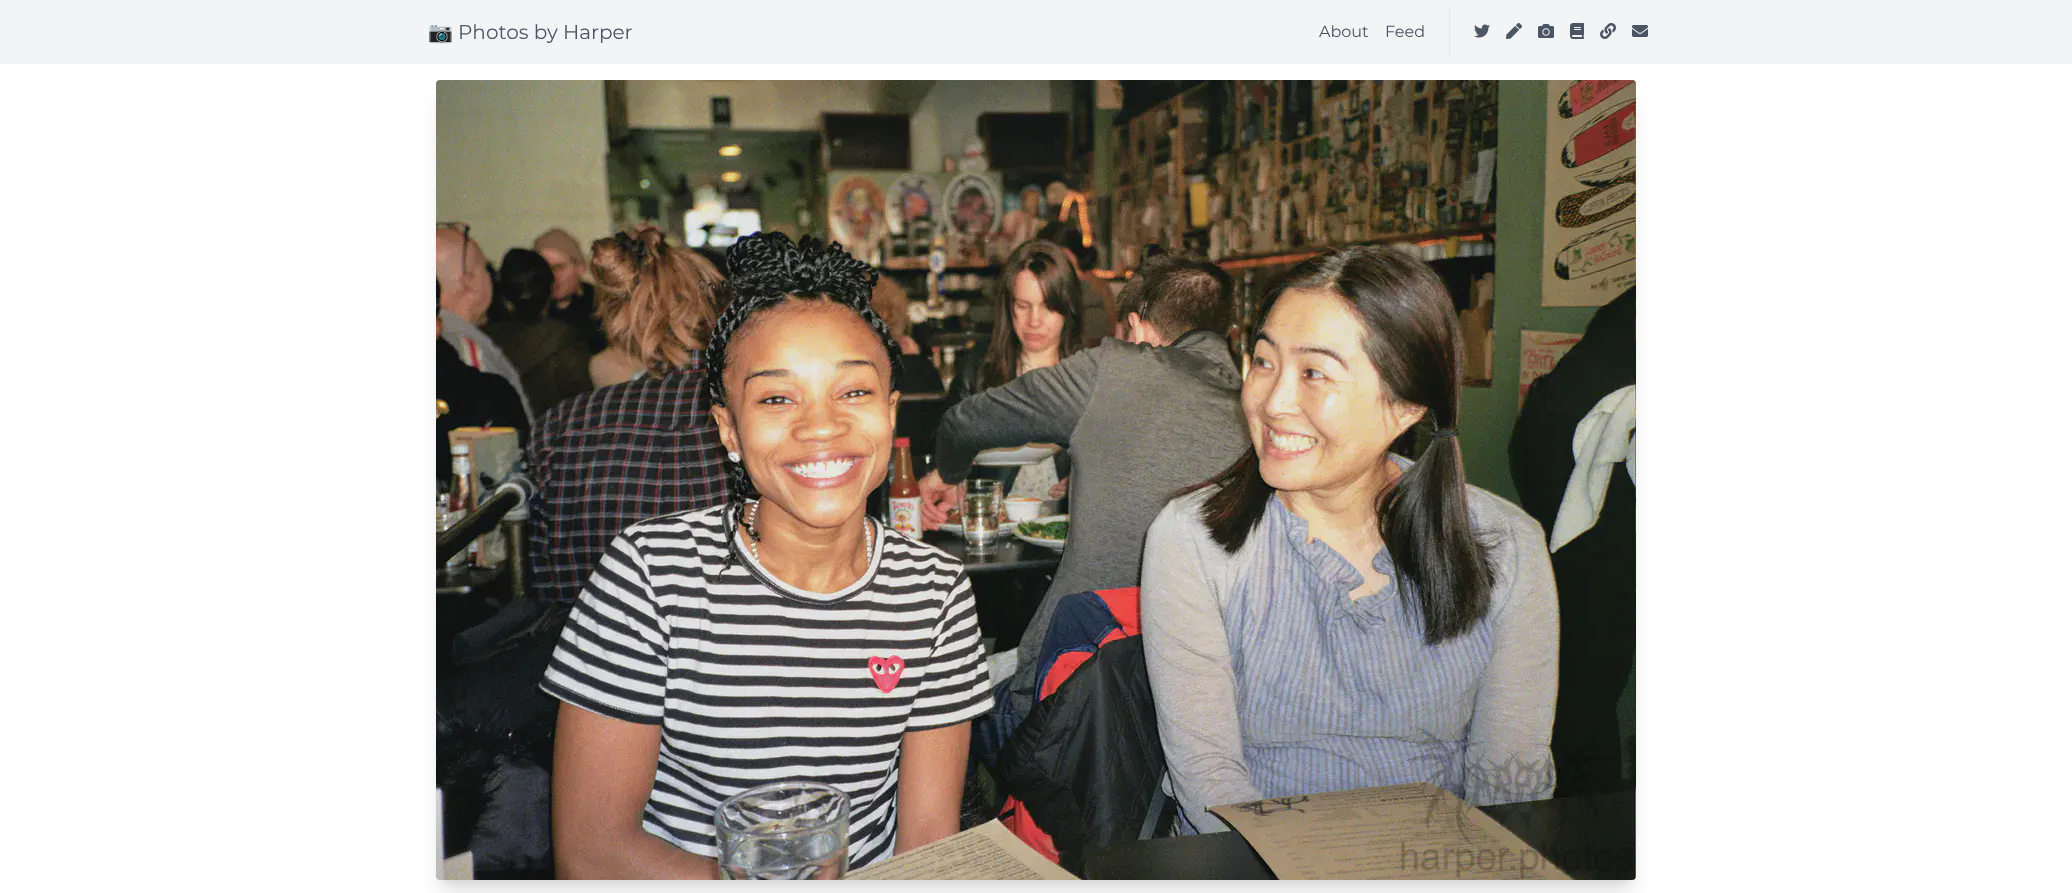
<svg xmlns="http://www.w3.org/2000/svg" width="2072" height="893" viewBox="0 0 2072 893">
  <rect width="100%" height="100%" fill="#fff"/>
  <path d="M0 0h2072v64H0z" fill="#f3f4f6"/>
  <path d="M1449 8h1v48H1449z" fill="#e5e7eb"/>
  <image x="1474" y="24" width="16" height="14" href="img/1.png"/>
  <image x="1506" y="23" width="16" height="16" href="img/2.png"/>
  <image x="1538" y="24" width="16" height="14" href="img/3.png"/>
  <image x="1570" y="23" width="14" height="16" href="img/4.png"/>
  <image x="1600" y="23" width="16" height="16" href="img/5.png"/>
  <image x="1632" y="25" width="16" height="12" href="img/6.png"/>
  <path d="M442 94h1188v788H442z" fill="#0000001a" filter="blur(5px)"/>
  <path d="M441 105h1190v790H441z" fill="#0000001a" filter="blur(12.5px)"/>
  <image x="436" y="80" width="1200" height="800" href="img/7.png"/>
  <text x="428" y="39" font-family="Noto Color Emoji" font-size="20" fill="#4b5563">📷</text>
  <text x="458" y="39" font-family="Montserrat" font-size="20" fill="#4b5563">Photos by Harper</text>
  <g font-family="Montserrat" font-size="16" fill="#4b5563">
    <text x="1319" y="37">About</text>
    <text x="1385" y="37">Feed</text>
  </g>
</svg>
